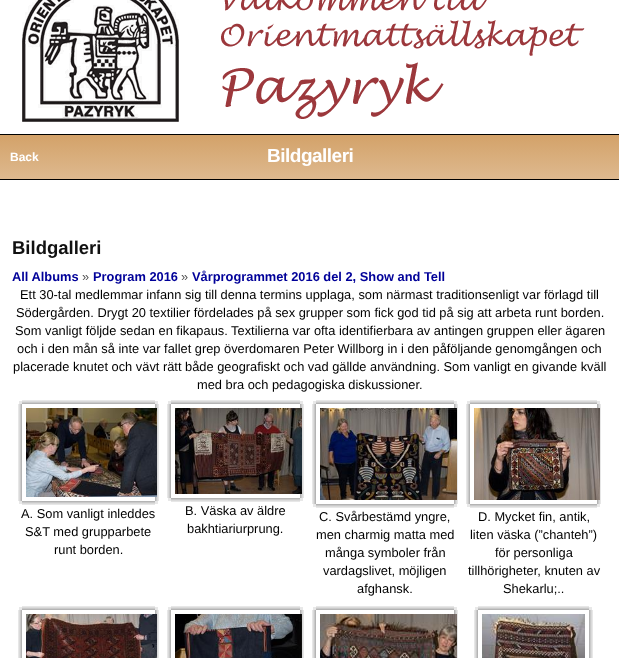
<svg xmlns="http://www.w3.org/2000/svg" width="619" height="658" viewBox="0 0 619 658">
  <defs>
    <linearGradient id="g1" gradientUnits="userSpaceOnUse" x1="310" y1="135" x2="310" y2="179"><stop offset="0" stop-color="#d3a269"/><stop offset="1" stop-color="#deb98f"/></linearGradient>
  </defs>
  <rect width="100%" height="100%" fill="#fff"/>
  <image x="22" y="0" width="563" height="122" href="img/1.png"/>
  <path d="M0 135h619v44H0z" fill="url(#g1)"/>
  <path d="M0 134h619v1H0z" fill="#000"/>
  <path d="M0 179h619v1H0z" fill="#000"/>
  <path d="M19 401h3v3H19z" fill="#e8e8e8"/>
  <image x="22" y="400" width="133" height="4" href="img/2.png"/>
  <path d="M155 401h3v3H155z" fill="#e8e8e8"/>
  <image x="18" y="404" width="4" height="97" href="img/3.png"/>
  <image x="155" y="404" width="4" height="97" href="img/4.png"/>
  <image x="26" y="408" width="131" height="89" href="img/5.png"/>
  <path d="M19 501h3v3H19z" fill="#e8e8e8"/>
  <image x="22" y="501" width="133" height="4" href="img/6.png"/>
  <path d="M155 501h3v3H155z" fill="#e8e8e8"/>
  <path d="M168 401h3v3H168z" fill="#e8e8e8"/>
  <image x="171" y="400" width="129" height="4" href="img/7.png"/>
  <path d="M300 401h3v3H300z" fill="#e8e8e8"/>
  <image x="167" y="404" width="4" height="94" href="img/8.png"/>
  <image x="300" y="404" width="4" height="94" href="img/9.png"/>
  <image x="175" y="408" width="127" height="86" href="img/10.png"/>
  <path d="M168 498h3v3H168z" fill="#e8e8e8"/>
  <image x="171" y="498" width="129" height="4" href="img/11.png"/>
  <path d="M300 498h3v3H300z" fill="#e8e8e8"/>
  <path d="M313 401h3v3H313z" fill="#e8e8e8"/>
  <image x="316" y="400" width="138" height="4" href="img/12.png"/>
  <path d="M454 401h3v3H454z" fill="#e8e8e8"/>
  <image x="312" y="404" width="4" height="100" href="img/13.png"/>
  <image x="454" y="404" width="4" height="100" href="img/14.png"/>
  <image x="320" y="408" width="137" height="92" href="img/15.png"/>
  <path d="M313 504h3v3H313z" fill="#e8e8e8"/>
  <image x="316" y="504" width="138" height="4" href="img/16.png"/>
  <path d="M454 504h3v3H454z" fill="#e8e8e8"/>
  <path d="M467 401h3v3H467z" fill="#e8e8e8"/>
  <image x="470" y="400" width="127" height="4" href="img/17.png"/>
  <path d="M597 401h3v3H597z" fill="#e8e8e8"/>
  <image x="466" y="404" width="4" height="100" href="img/13.png"/>
  <image x="597" y="404" width="4" height="100" href="img/14.png"/>
  <image x="474" y="408" width="126" height="92" href="img/18.png"/>
  <path d="M467 504h3v3H467z" fill="#e8e8e8"/>
  <image x="470" y="504" width="127" height="4" href="img/19.png"/>
  <path d="M597 504h3v3H597z" fill="#e8e8e8"/>
  <path d="M19 607h3v3H19z" fill="#e8e8e8"/>
  <image x="22" y="606" width="133" height="4" href="img/2.png"/>
  <path d="M155 607h3v3H155z" fill="#e8e8e8"/>
  <image x="18" y="610" width="4" height="48" href="img/20.png"/>
  <image x="155" y="610" width="4" height="48" href="img/21.png"/>
  <image x="26" y="614" width="131" height="44" href="img/22.png"/>
  <path d="M168 607h3v3H168z" fill="#e8e8e8"/>
  <image x="171" y="606" width="129" height="4" href="img/7.png"/>
  <path d="M300 607h3v3H300z" fill="#e8e8e8"/>
  <image x="167" y="610" width="4" height="48" href="img/20.png"/>
  <image x="300" y="610" width="4" height="48" href="img/21.png"/>
  <image x="175" y="614" width="127" height="44" href="img/23.png"/>
  <path d="M313 607h3v3H313z" fill="#e8e8e8"/>
  <image x="316" y="606" width="138" height="4" href="img/12.png"/>
  <path d="M454 607h3v3H454z" fill="#e8e8e8"/>
  <image x="312" y="610" width="4" height="48" href="img/20.png"/>
  <image x="454" y="610" width="4" height="48" href="img/21.png"/>
  <image x="320" y="614" width="137" height="44" href="img/24.png"/>
  <path d="M475 607h3v3H475z" fill="#e8e8e8"/>
  <image x="478" y="606" width="111" height="4" href="img/25.png"/>
  <path d="M589 607h3v3H589z" fill="#e8e8e8"/>
  <image x="474" y="610" width="4" height="48" href="img/20.png"/>
  <image x="482" y="614" width="103" height="44" href="img/26.png"/>
  <image x="589" y="610" width="4" height="48" href="img/21.png"/>
  <text x="10" y="161" font-family="Liberation Sans" font-size="12" font-weight="bold" fill="#fff">Back</text>
  <text x="267" y="162" font-family="Liberation Sans" font-size="19" font-weight="bold" letter-spacing="-0.5" fill="#fff">Bildgalleri</text>
  <text x="12" y="254" font-family="Liberation Sans" font-size="18.5" font-weight="bold" fill="#111">Bildgalleri</text>
  <text x="12" y="281" font-family="Liberation Sans" font-size="12.85" font-weight="bold" fill="#009">All Albums</text>
  <text x="82" y="281" font-family="Liberation Sans" font-size="12.85" fill="#4f4f4f">»</text>
  <text x="93" y="281" font-family="Liberation Sans" font-size="12.85" font-weight="bold" fill="#009">Program 2016</text>
  <text x="181" y="281" font-family="Liberation Sans" font-size="12.85" fill="#4f4f4f">»</text>
  <text x="192" y="281" font-family="Liberation Sans" font-size="12.85" font-weight="bold" fill="#009">Vårprogrammet 2016 del 2, Show and Tell</text>
  <g font-family="Liberation Sans" font-size="12.85" fill="#000">
    <text x="20" y="299">Ett 30-tal medlemmar infann sig till denna termins upplaga, som närmast traditionsenligt var förlagd till</text>
    <text x="16" y="317">Södergården. Drygt 20 textilier fördelades på sex grupper som fick god tid på sig att arbeta runt borden.</text>
    <text x="15" y="335">Som vanligt följde sedan en fikapaus. Textilierna var ofta identifierbara av antingen gruppen eller ägaren</text>
    <text x="17" y="353">och i den mån så inte var fallet grep överdomaren Peter Willborg in i den påföljande genomgången och</text>
    <text x="13" y="371">placerade knutet och vävt rätt både geografiskt och vad gällde användning. Som vanligt en givande kväll</text>
    <text x="197" y="389">med bra och pedagogiska diskussioner.</text>
    <text x="21" y="518">A. Som vanligt inleddes</text>
    <text x="25" y="536">S&amp;T med grupparbete</text>
    <text x="54" y="554">runt borden.</text>
    <text x="185" y="515">B. Väska av äldre</text>
    <text x="187" y="533">bakhtiariurprung.</text>
    <text x="319" y="521">C. Svårbestämd yngre,</text>
    <text x="316" y="539">men charmig matta med</text>
    <text x="325" y="557">många symboler från</text>
    <text x="323" y="575">vardagslivet, möjligen</text>
    <text x="357" y="593">afghansk.</text>
    <text x="478" y="521">D. Mycket fin, antik,</text>
    <text x="470" y="539">liten väska (”chanteh”)</text>
    <text x="495" y="557">för personliga</text>
    <text x="468" y="575">tillhörigheter, knuten av</text>
    <text x="503" y="593">Shekarlu;..</text>
  </g>
</svg>
